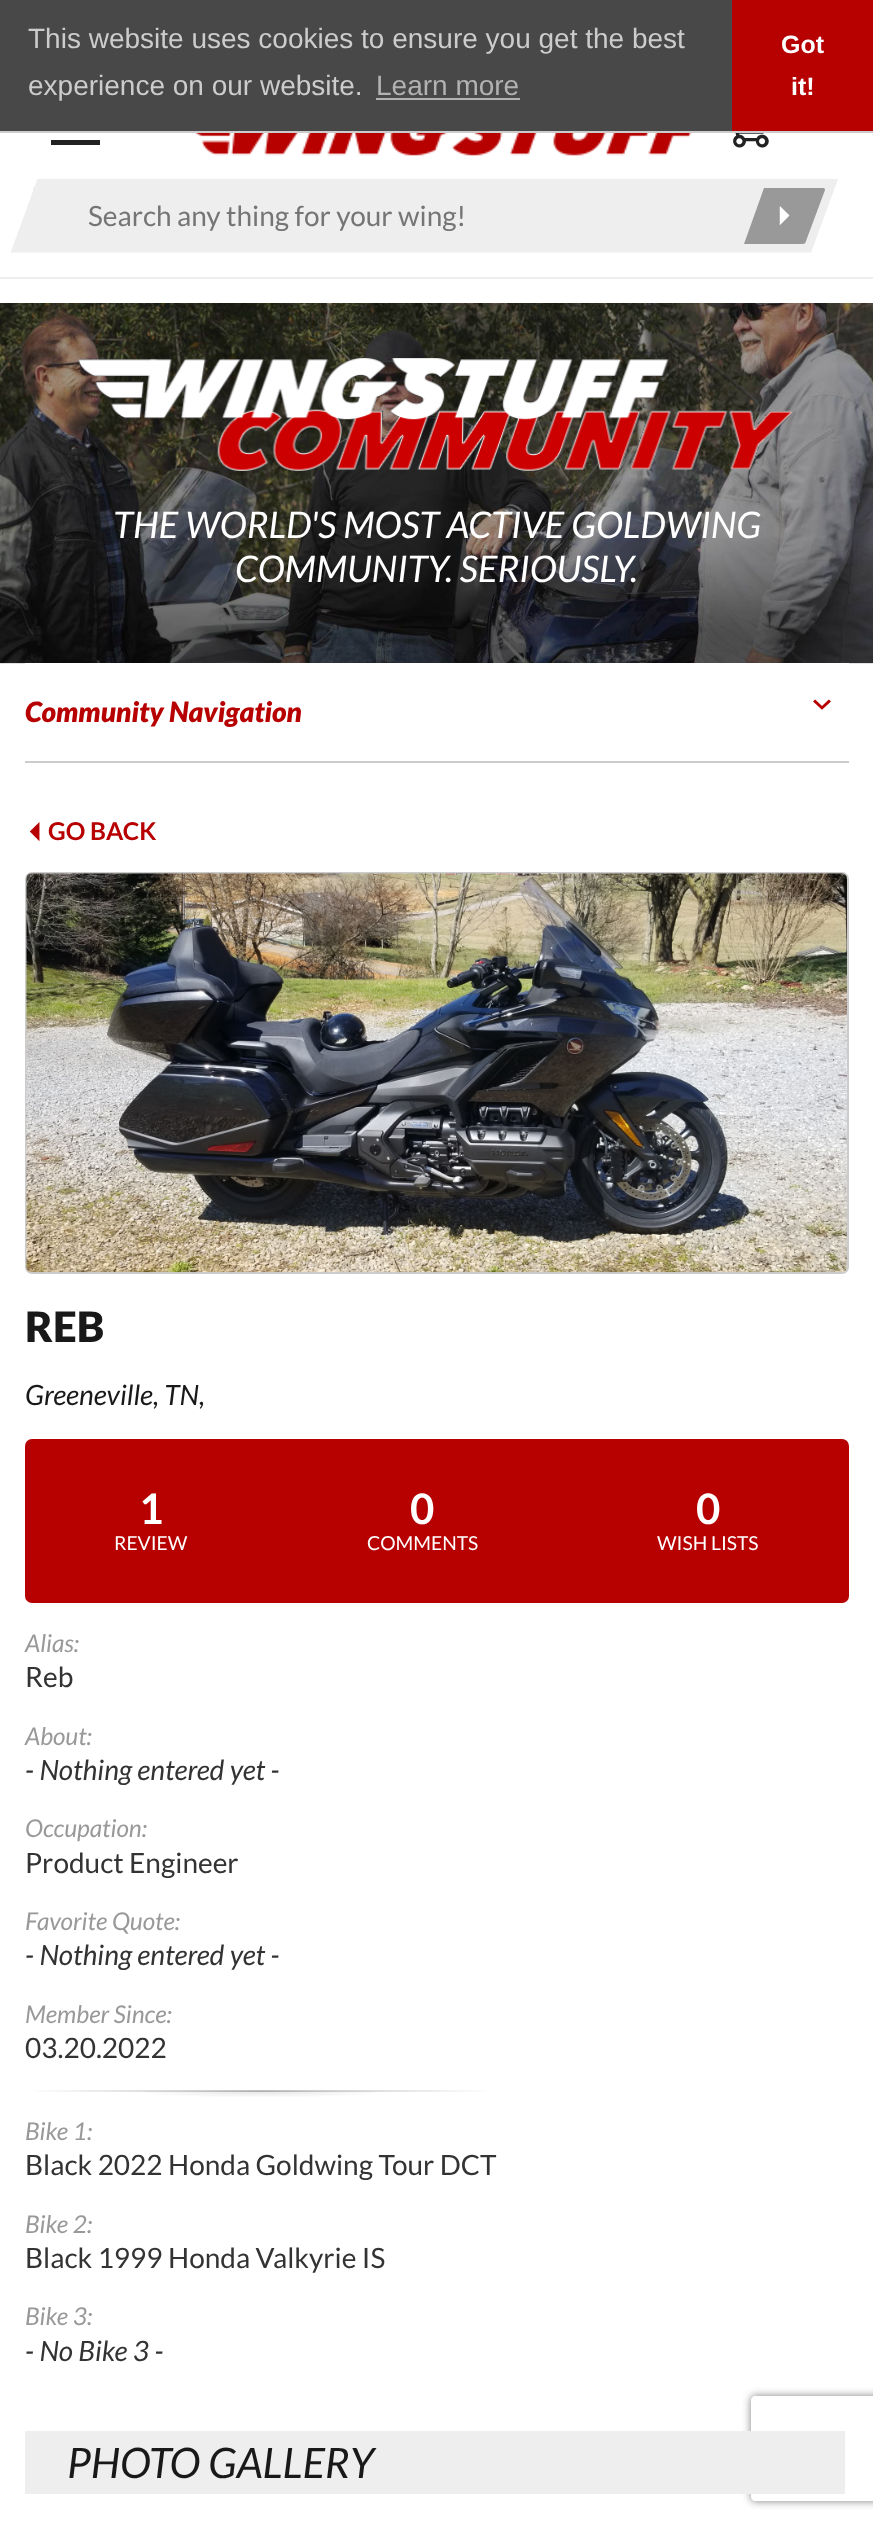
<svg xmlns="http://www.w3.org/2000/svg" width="873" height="2525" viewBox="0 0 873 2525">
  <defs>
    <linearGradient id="g1" gradientUnits="userSpaceOnUse" x1="25" y1="2090" x2="495" y2="2090"><stop offset="0" stop-color="#fff"/><stop offset="0.5" stop-color="#c0c0c0"/><stop offset="1" stop-color="#fff"/></linearGradient>
    <radialGradient id="g2" gradientUnits="userSpaceOnUse" cx="0" cy="0" r="1" gradientTransform="matrix(333 0 0 17 260 2091)"><stop offset="0" stop-color="#4a4a4a" stop-opacity="0.15"/><stop offset="0.4" stop-color="#4a4a4a" stop-opacity="0"/></radialGradient>
    <clipPath id="clip1"><path d="M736 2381H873V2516H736ZM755 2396H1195C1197 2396 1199 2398 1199 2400V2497C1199 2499 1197 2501 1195 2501H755C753 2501 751 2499 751 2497V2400C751 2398 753 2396 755 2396Z" clip-rule="evenodd"/></clipPath>
    <clipPath id="clip2"><path d="M88 198h586v33H88z"/></clipPath>
  </defs>
  <rect width="100%" height="100%" fill="#fff"/>
  <path d="M51 140V145H100V140ZM51 125V130H100V125ZM51 109V114H100V109Z" fill="#222"/>
  <path d="M0 0h732v131H0z" fill="#494848"/>
  <path d="M0 131h873v2H0z" fill="#ccc"/>
  <path d="M376 98h144v2H376z" fill="#b2b2b2"/>
  <path d="M732 0h141v131H732z" fill="#b70000"/>
  <path d="M0 277h873v2H0z" fill="#eee"/>
  <image x="172" y="133" width="531" height="23" href="img/1.png"/>
  <image x="733" y="133" width="36" height="15" href="img/2.png"/>
  <path d="M38 179H838L811 252H11Z" fill="#eee"/>
  <path d="M40.5 183.5H831.5L808 248H17Z" fill="none" stroke="#eee" stroke-width="8.8"/>
  <path d="M33 187h2v4H33z" fill="#eee"/>
  <path d="M764 188H823C825 188 825 189 825 190L806 241C806 243 804 244 803 244H744Z" fill="#999"/>
  <image x="0" y="303" width="873" height="361" href="img/3.png"/>
  <image x="78" y="358" width="716" height="113" href="img/4.png"/>
  <path d="M25 663h824v1H25z" fill="#fff"/>
  <path d="M25 761h824v2H25z" fill="#ccc"/>
  <rect x="26" y="873" width="822" height="400" rx="6" fill="none" stroke="#ccc" stroke-width="2"/>
  <image x="26" y="873" width="821" height="400" href="img/5.png"/>
  <rect x="25" y="1439" width="824" height="164" rx="7" fill="#b70000"/>
  <path d="M34 2090h452v2H34z" fill="url(#g1)"/>
  <path d="M146 2091h228v6H146z" fill="url(#g2)"/>
  <g clip-path="url(#clip1)">
    <rect x="751" y="2396" width="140" height="105" rx="4" fill="#808080" filter="blur(4.5px)"/>
  </g>
  <path d="M25 2431h820v63H25z" fill="#eee"/>
  <g font-family="Liberation Sans" font-size="28" fill="#ccc">
    <text x="28" y="48">This website uses cookies to ensure you get the best</text>
    <text x="28" y="95">experience on our website.</text>
  </g>
  <text x="376" y="95" font-family="Liberation Sans" font-size="28" fill="#b2b2b2">Learn more</text>
  <g font-family="Liberation Sans" font-size="25" font-weight="bold" fill="#fff">
    <text x="781" y="53">Got</text>
    <text x="791" y="95">it!</text>
  </g>
  <g clip-path="url(#clip2)">
    <text x="88" y="226" font-family="Lato" font-size="28" fill="#757575">Search any thing for your wing!</text>
  </g>
  <text x="775" y="224" font-family="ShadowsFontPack" font-size="19.25" fill="#fff">7</text>
  <g font-family="Lato" font-size="36.75" font-style="italic" fill="#fff">
    <text x="113" y="538">THE WORLD'S MOST ACTIVE GOLDWING</text>
    <text x="235" y="582">COMMUNITY. SERIOUSLY.</text>
  </g>
  <text x="25" y="722" font-family="Lato" font-size="28" font-weight="900" font-style="italic" fill="#b70000">Community Navigation</text>
  <text x="813" y="712" font-family="ShadowsFontPack" font-size="18" fill="#b70000">1</text>
  <text x="25" y="840" font-family="ShadowsFontPack" font-size="19.25" fill="#b70000">6</text>
  <text x="48" y="840" font-family="Lato" font-size="24.5" font-weight="bold" fill="#b70000">GO BACK</text>
  <text x="25" y="1342" font-family="Lato" font-size="42" font-weight="900" fill="#191919">REB</text>
  <text x="25" y="1405" font-family="Lato" font-size="28" font-style="italic" fill="#191919">Greeneville, TN,</text>
  <text x="139" y="1524" font-family="Lato" font-size="42" font-weight="bold" fill="#fff">1</text>
  <text x="114" y="1550" font-family="Lato" font-size="19.25" fill="#fff">REVIEW</text>
  <text x="410" y="1524" font-family="Lato" font-size="42" font-weight="bold" fill="#fff">0</text>
  <text x="367" y="1550" font-family="Lato" font-size="19.25" fill="#fff">COMMENTS</text>
  <text x="696" y="1524" font-family="Lato" font-size="42" font-weight="bold" fill="#fff">0</text>
  <text x="657" y="1550" font-family="Lato" font-size="19.25" fill="#fff">WISH LISTS</text>
  <text x="25" y="1652" font-family="Lato" font-size="24.5" font-style="italic" fill="#999">Alias:</text>
  <text x="25" y="1687" font-family="Lato" font-size="28" fill="#333">Reb</text>
  <text x="25" y="1745" font-family="Lato" font-size="24.5" font-style="italic" fill="#999">About:</text>
  <text x="25" y="1780" font-family="Lato" font-size="28" font-style="italic" fill="#333">- Nothing entered yet -</text>
  <text x="25" y="1837" font-family="Lato" font-size="24.5" font-style="italic" fill="#999">Occupation:</text>
  <text x="25" y="1873" font-family="Lato" font-size="28" fill="#333">Product Engineer</text>
  <text x="25" y="1930" font-family="Lato" font-size="24.5" font-style="italic" fill="#999">Favorite Quote:</text>
  <text x="25" y="1965" font-family="Lato" font-size="28" font-style="italic" fill="#333">- Nothing entered yet -</text>
  <text x="25" y="2023" font-family="Lato" font-size="24.5" font-style="italic" fill="#999">Member Since:</text>
  <text x="25" y="2058" font-family="Lato" font-size="28" fill="#333">03.20.2022</text>
  <text x="25" y="2140" font-family="Lato" font-size="24.5" font-style="italic" fill="#999">Bike 1:</text>
  <text x="25" y="2175" font-family="Lato" font-size="28" fill="#333">Black 2022 Honda Goldwing Tour DCT</text>
  <text x="25" y="2233" font-family="Lato" font-size="24.5" font-style="italic" fill="#999">Bike 2:</text>
  <text x="25" y="2268" font-family="Lato" font-size="28" fill="#333">Black 1999 Honda Valkyrie IS</text>
  <text x="25" y="2325" font-family="Lato" font-size="24.5" font-style="italic" fill="#999">Bike 3:</text>
  <text x="25" y="2361" font-family="Lato" font-size="28" font-style="italic" fill="#333">- No Bike 3 -</text>
  <text x="67" y="2478" font-family="Lato" font-size="42" font-style="italic" fill="#191919">PHOTO GALLERY</text>
</svg>
